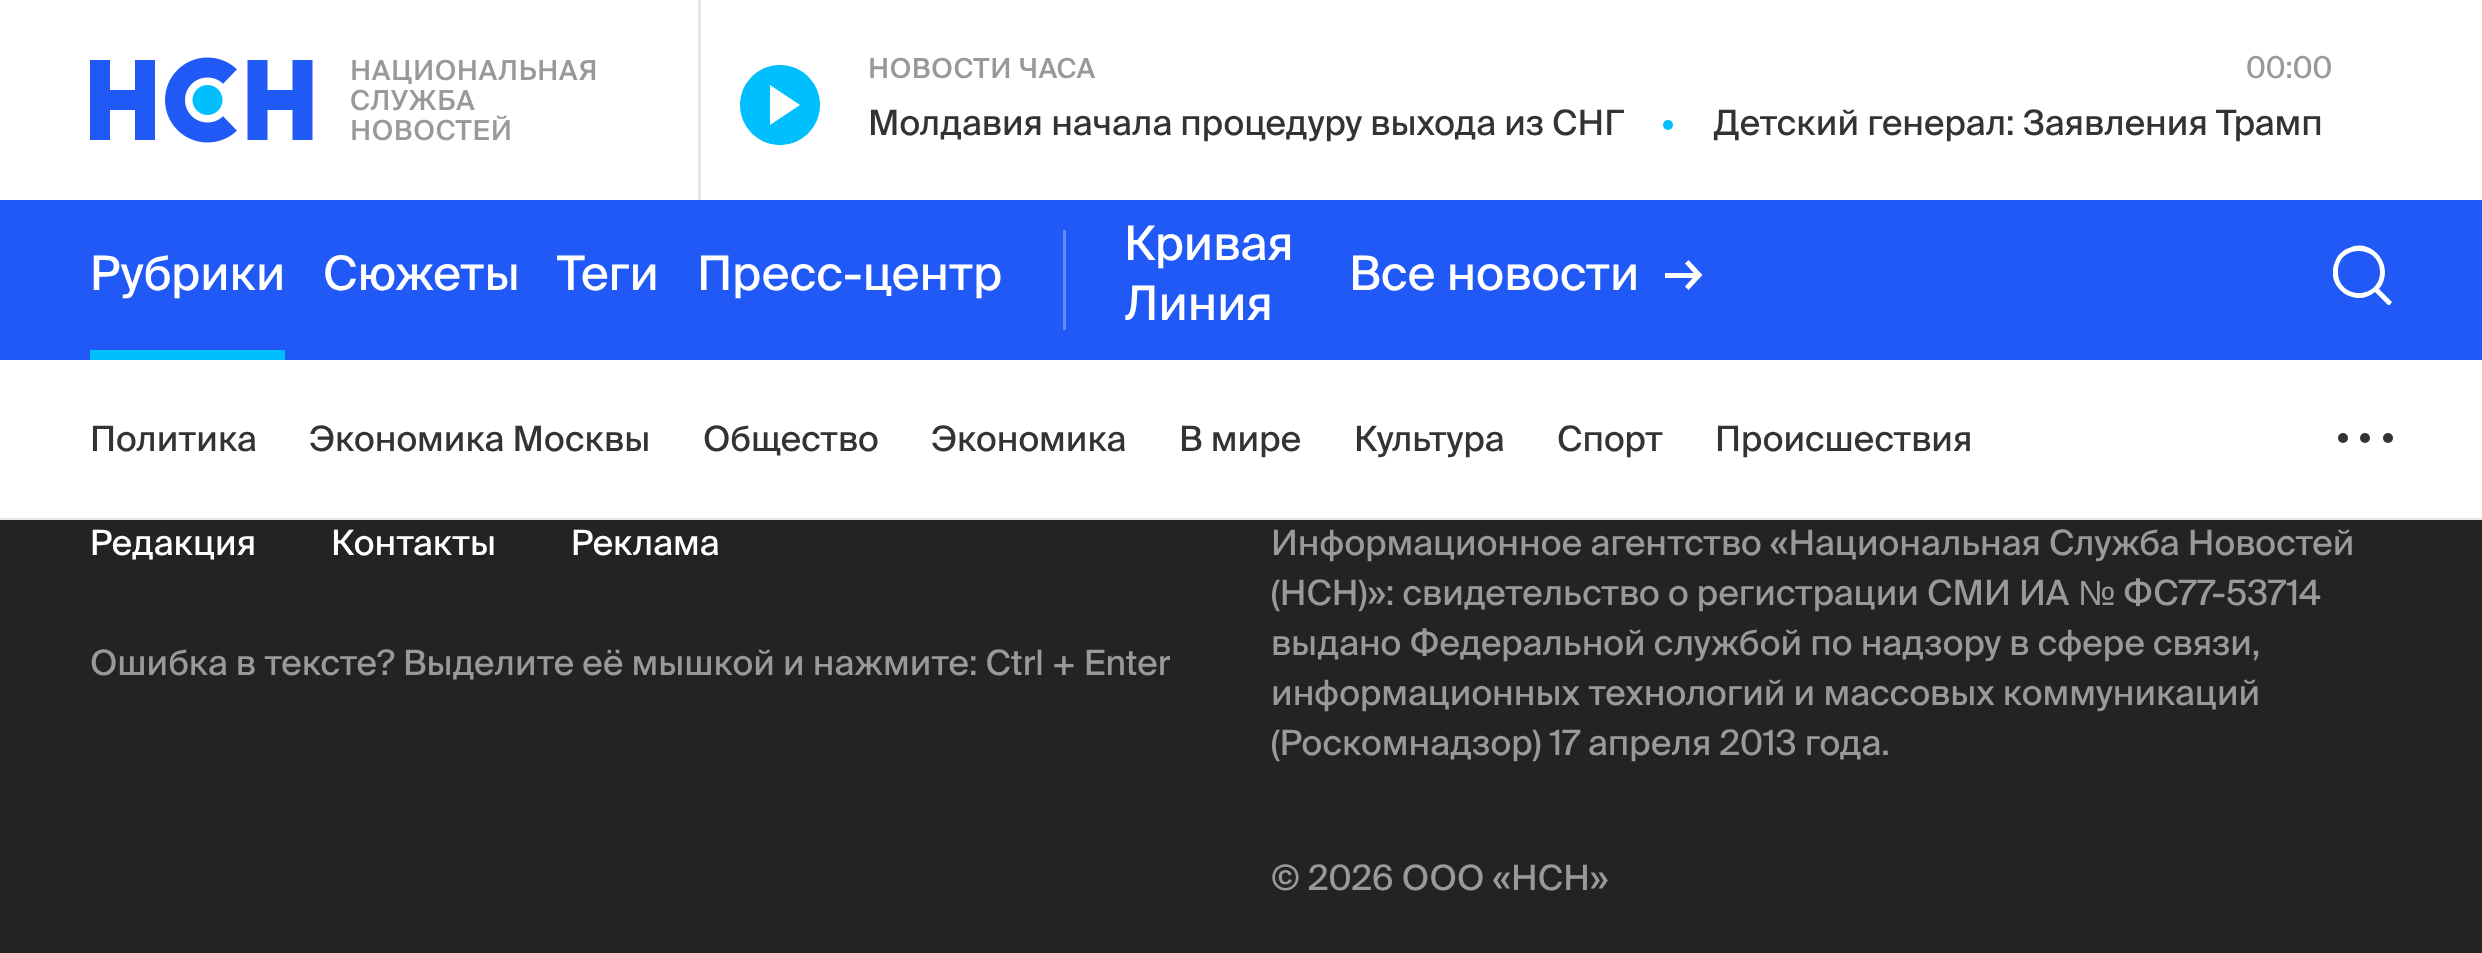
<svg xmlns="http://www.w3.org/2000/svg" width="2482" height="953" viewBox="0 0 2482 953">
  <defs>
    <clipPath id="clip1"><rect x="740" y="65" width="80" height="80" rx="40"/></clipPath>
    <clipPath id="clip2"><path d="M2333 245h60v60H2333z"/></clipPath>
  </defs>
  <rect width="100%" height="100%" fill="#232323"/>
  <path d="M0 0h2482v200H0z" fill="#fff"/>
  <image x="90" y="57" width="506" height="86" href="img/1.png"/>
  <path d="M698 0h3v200H698z" fill="#e6e6e6"/>
  <circle cx="780" cy="105" r="40" fill="#00bfff"/>
  <path d="M800 105L770 125V85Z" fill="#fff"/>
  <g clip-path="url(#clip1)">
    <path d="M742.5 105C742.5 84.5 759.5 67.5 780 67.5C800.5 67.5 817.5 84.5 817.5 105C817.5 125.5 800.5 142.5 780 142.5C759.5 142.5 743 126 742.5 105.5" fill="none" stroke="#00bfff" stroke-width="5"/>
  </g>
  <circle cx="1668" cy="125" r="5" fill="#00bfff"/>
  <path d="M0 200h2482v160H0z" fill="#2059f6"/>
  <path d="M90 350h195v10H90z" fill="#00bfff"/>
  <path d="M1063 230h3v100H1063z" fill="#638bf9"/>
  <path d="M1688.5 290L1685 286.5L1695.5 275L1685 263.5L1688.5 260L1702.5 275Z" fill="#fff"/>
  <path d="M1665 273h33v5H1665z" fill="#fff"/>
  <g clip-path="url(#clip2)">
    <path d="M2375 292C2355 309 2324 287 2335 262C2337 256 2342 250 2349 248C2357 244 2366 245 2373 250C2386 259 2389 277 2379 289L2392 302L2389 306ZM2380 272C2380 300 2338 300 2338 272C2337 244 2380 244 2380 272Z" fill="#fff" fill-rule="evenodd"/>
  </g>
  <path d="M0 360h2482v158H0z" fill="#fff"/>
  <path d="M0 518h2482v2H0z" fill="#e6e6e6"/>
  <circle cx="2343" cy="438" r="5" fill="#333"/>
  <circle cx="2365" cy="438" r="5" fill="#333"/>
  <circle cx="2388" cy="438" r="5" fill="#333"/>
  <path d="M0 520h2482v1H0z" fill="#202020"/>
  <text x="868" y="78" font-family="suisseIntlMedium" font-size="27.5" font-weight="500" letter-spacing="0.5" fill="#999">НОВОСТИ ЧАСА</text>
  <text x="2246" y="78" font-family="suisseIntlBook" font-size="30" fill="#999">00:00</text>
  <g font-family="suisseIntlBook" font-size="35" fill="#333">
    <text x="868" y="135">Молдавия начала процедуру выхода из СНГ</text>
    <text x="1713" y="135">Детский генерал: Заявления Трамп</text>
  </g>
  <g font-family="suisseIntlBook" font-size="47.5" fill="#fff">
    <text x="90" y="290">Рубрики</text>
    <text x="323" y="290">Сюжеты</text>
    <text x="557" y="290">Теги</text>
    <text x="697" y="290">Пресс-центр</text>
    <text x="1124" y="260">Кривая</text>
    <text x="1124" y="320">Линия</text>
    <text x="1349" y="290">Все новости</text>
  </g>
  <g font-family="suisseIntlBook" font-size="35" fill="#333">
    <text x="90" y="451">Политика</text>
    <text x="309" y="451">Экономика Москвы</text>
    <text x="703" y="451">Общество</text>
    <text x="931" y="451">Экономика</text>
    <text x="1179" y="451">В мире</text>
    <text x="1354" y="451">Культура</text>
    <text x="1557" y="451">Спорт</text>
    <text x="1715" y="451">Происшествия</text>
  </g>
  <g font-family="suisseIntlBook" font-size="35" fill="#fff">
    <text x="90" y="555">Редакция</text>
    <text x="331" y="555">Контакты</text>
    <text x="571" y="555">Реклама</text>
  </g>
  <g font-family="suisseIntlBook" font-size="35" fill="#999">
    <text x="90" y="675">Ошибка в тексте? Выделите её мышкой и нажмите: Ctrl + Enter</text>
    <text x="1271" y="555">Информационное агентство «Национальная Служба Новостей</text>
    <text x="1271" y="605">(НСН)»: свидетельство о регистрации СМИ ИА</text>
  </g>
  <text x="2078" y="605" font-family="Liberation Sans" font-size="35" fill="#999">№</text>
  <g font-family="suisseIntlBook" font-size="35" fill="#999">
    <text x="2123" y="605">ФС77-53714</text>
    <text x="1271" y="655">выдано Федеральной службой по надзору в сфере связи,</text>
    <text x="1271" y="705">информационных технологий и массовых коммуникаций</text>
    <text x="1271" y="755">(Роскомнадзор) 17 апреля 2013 года.</text>
    <text x="1271" y="890">© 2026 ООО «НСН»</text>
  </g>
</svg>
